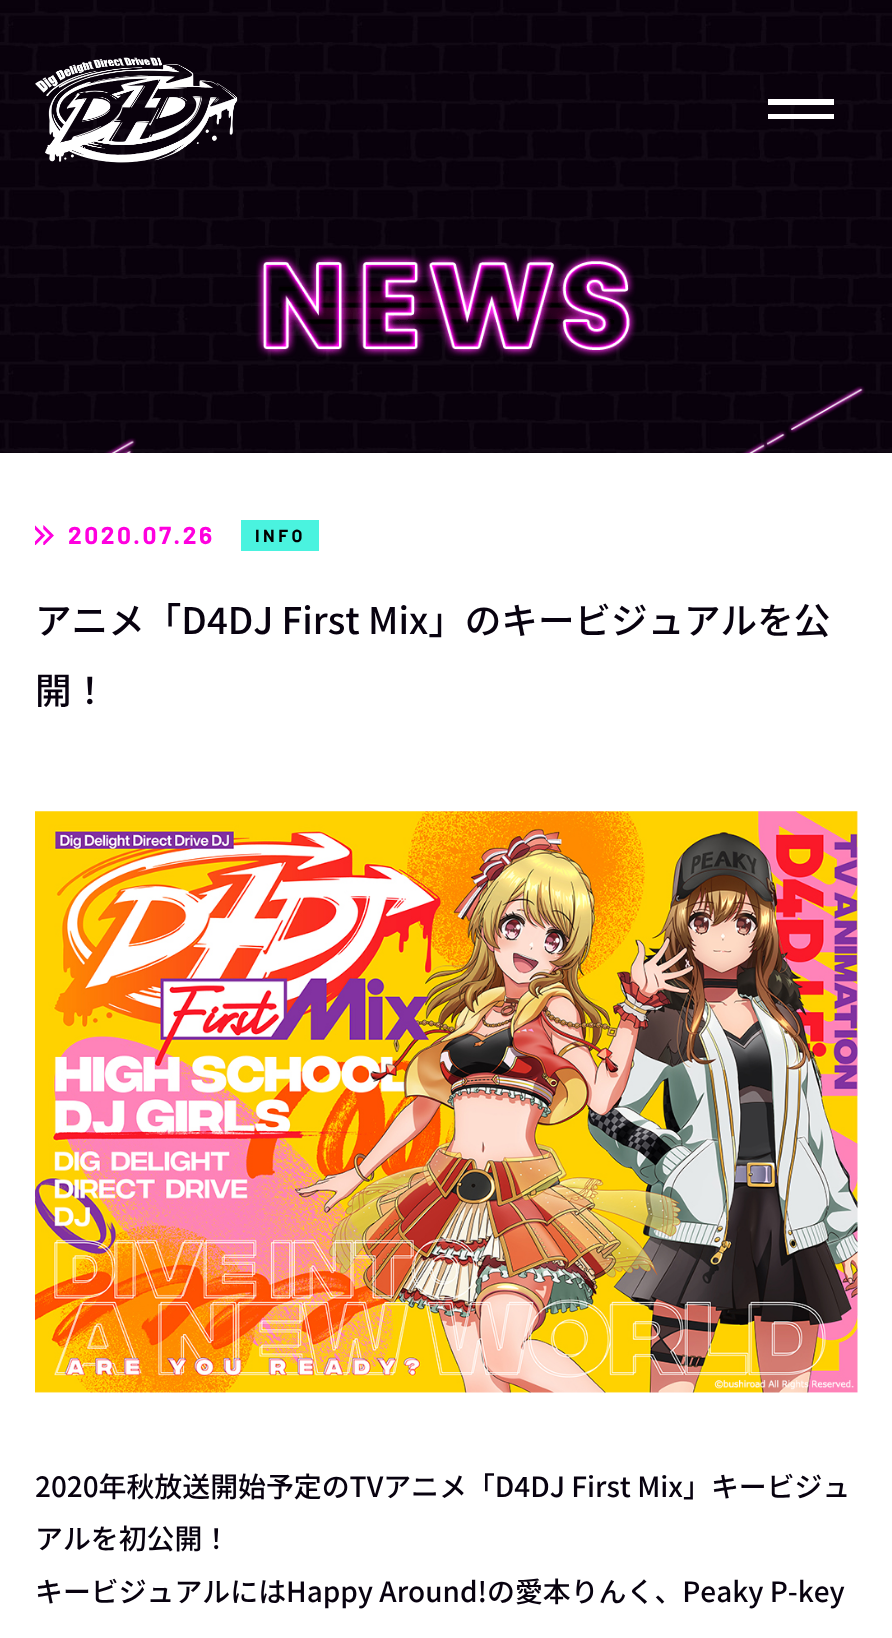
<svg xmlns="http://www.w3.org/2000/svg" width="892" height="1638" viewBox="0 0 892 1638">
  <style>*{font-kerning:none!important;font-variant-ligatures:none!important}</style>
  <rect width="100%" height="100%" fill="#fff"/>
  <image x="0" y="0" width="892" height="453" href="img/2.png"/>
  <image x="35" y="57" width="203" height="106" href="img/1.png"/>
  <path d="M768 99h66v6H768z" fill="#fff"/>
  <path d="M768 114h66v5H768z" fill="#fff"/>
  <image x="255" y="254" width="382" height="104" href="img/3.png"/>
  <image x="104" y="386" width="761" height="67" href="img/4.png"/>
  <image x="35" y="525" width="19" height="20" href="img/5.png"/>
  <path d="M241 520h78v31H241z" fill="#4af3df"/>
  <image x="35" y="811" width="823" height="582" href="img/6.png"/>
  <text x="68" y="544" font-family="Barlow" font-size="24.5" font-weight="bold" letter-spacing="2.5" fill="#ff00df">2020.07.26</text>
  <text x="255" y="542" font-family="Barlow" font-size="17.5" font-weight="bold" letter-spacing="3.5" fill="#000">INFO</text>
  <g font-family="Noto Sans JP" font-size="36.6" font-weight="500" fill="#08020f">
    <text x="35" y="634">アニメ「D4DJ First Mix」のキービジュ</text>
    <text x="684" y="634">アルを公</text>
    <text x="35" y="704">開！</text>
  </g>
  <g font-family="Noto Sans JP" font-size="27.9" font-weight="500" fill="#08020f">
    <text x="35" y="1497">2020年秋放送開始予定のTVアニメ「D4DJ First Mix」キービジュ</text>
    <text x="35" y="1549">アルを初公開！</text>
    <text x="35" y="1602">キービジュアルにはHappy Around!の愛本りんく、Peaky P-key</text>
  </g>
</svg>
